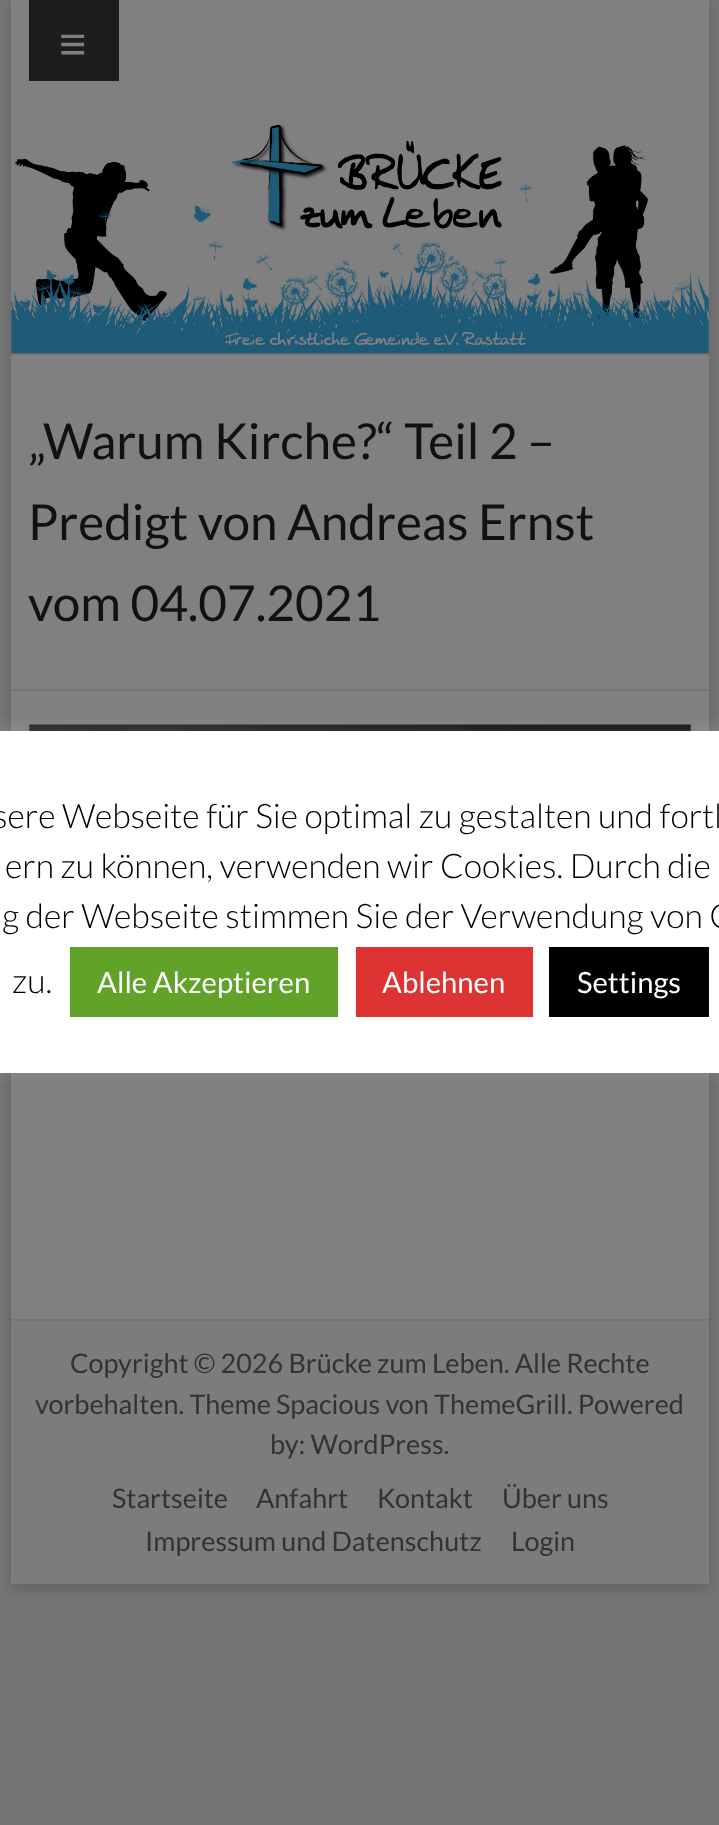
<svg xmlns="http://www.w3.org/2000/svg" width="719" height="1825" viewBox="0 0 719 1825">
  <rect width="100%" height="100%" fill="#757575"/>
  <path d="M11 5h698v1584H11z" fill="#3232324d" filter="blur(7px)"/>
  <path d="M11 0h698v1319H11z" fill="#808080"/>
  <path d="M29 0h90v81H29z" fill="#1d1d1d"/>
  <path d="M11 353h698v2H11z" fill="#757575"/>
  <image x="11" y="124" width="698" height="230" href="img/1.png"/>
  <path d="M11 689h698v2H11z" fill="#757575"/>
  <image x="29" y="724" width="662" height="7" href="img/2.png"/>
  <path d="M11 1321h698v263H11z" fill="#7c7c7c"/>
  <path d="M11 1319h698v2H11z" fill="#757575"/>
  <rect x="-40" y="729" width="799" height="342" rx="7" fill="#acabab4d" filter="blur(11px)"/>
  <path d="M0 731h719v342H0z" fill="#fff"/>
  <path d="M70 947h268v70H70z" fill="#61a229"/>
  <path d="M356 947h177v70H356z" fill="#d33"/>
  <path d="M549 947h160v70H549z" fill="#000"/>
  <text x="59" y="60" font-family="Liberation Sans" font-size="47" fill="#808080">≡</text>
  <g font-family="Lato" font-size="49.5" fill="#111">
    <text x="28" y="459">„Warum Kirche?“ Teil 2 –</text>
    <text x="28" y="540">Predigt von Andreas Ernst</text>
    <text x="28" y="621">vom 04.07.2021</text>
  </g>
  <g font-family="Lato" font-size="27" fill="#333">
    <text x="70" y="1373">Copyright © 2026 Brücke zum Leben. Alle Rechte</text>
    <text x="35" y="1414">vorbehalten. Theme Spacious von ThemeGrill. Powered</text>
    <text x="270" y="1454">by: WordPress.</text>
    <text x="112" y="1508">Startseite</text>
    <text x="256" y="1508">Anfahrt</text>
    <text x="377" y="1508">Kontakt</text>
    <text x="502" y="1508">Über uns</text>
    <text x="145" y="1551">Impressum und Datenschutz</text>
    <text x="511" y="1551">Login</text>
  </g>
  <g font-family="Lato" font-size="33.75" font-weight="300" fill="#000">
    <text x="-7" y="828">sere Webseite für Sie optimal zu gestalten und fortl</text>
    <text x="5" y="878">ern zu können, verwenden wir Cookies. Durch die</text>
    <text x="2" y="928">g der Webseite stimmen Sie der Verwendung von C</text>
    <text x="12" y="993">zu.</text>
  </g>
  <g font-family="Lato" font-size="29.25" fill="#fff">
    <text x="97" y="993">Alle Akzeptieren</text>
    <text x="382" y="993">Ablehnen</text>
    <text x="577" y="993">Settings</text>
  </g>
</svg>
